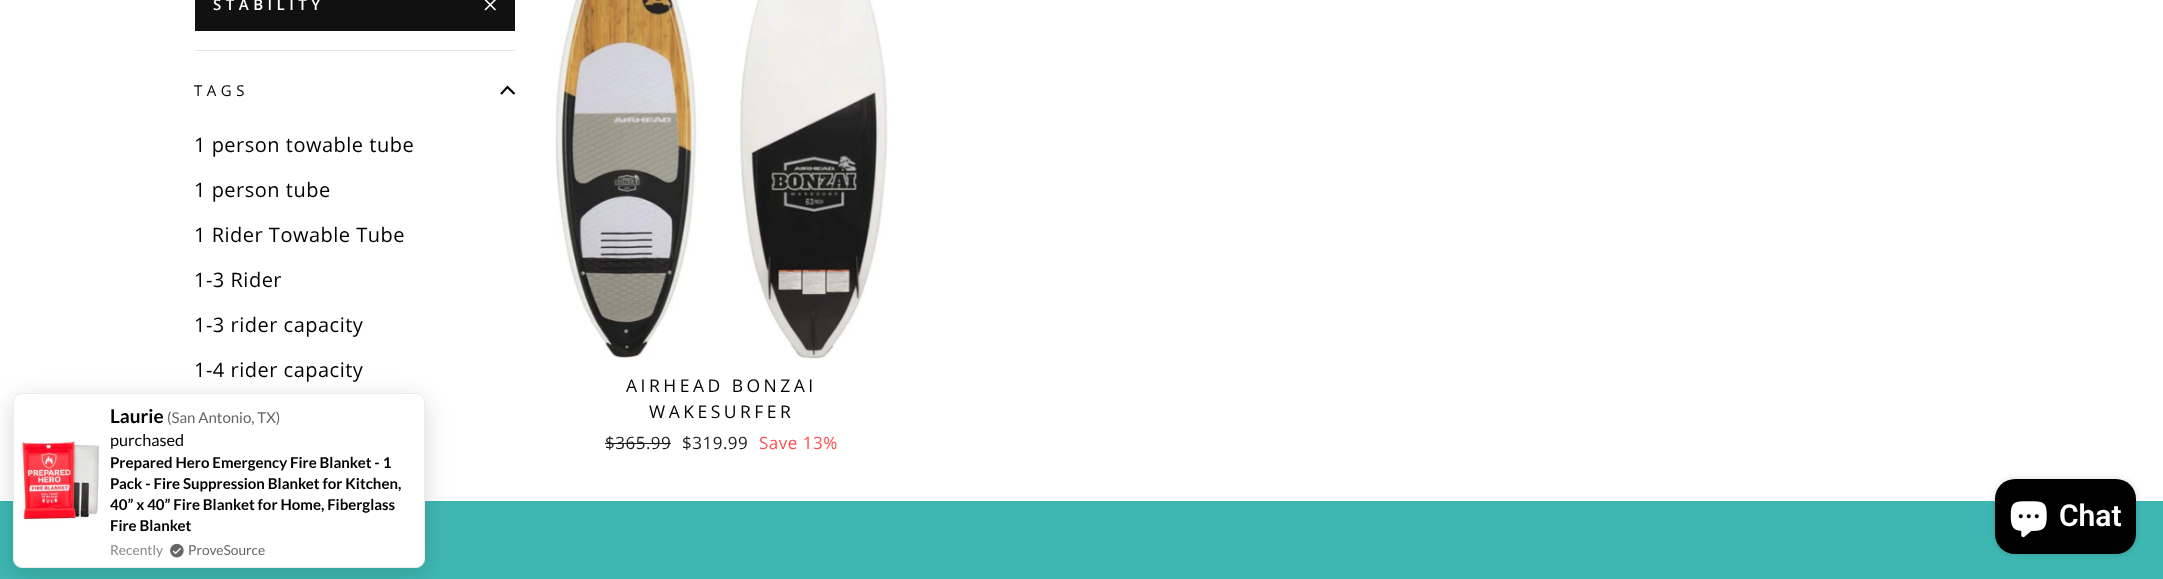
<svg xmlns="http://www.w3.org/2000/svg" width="2163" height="579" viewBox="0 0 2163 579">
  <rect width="100%" height="100%" fill="#fff"/>
  <path d="M195 0h320v31H195z" fill="#111"/>
  <path d="M485-.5L495.5 10M495.5-.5L485 10" fill="none" stroke="#fff" stroke-width="1.6"/>
  <path d="M195 50h320v1H195z" fill="#e8e8e1"/>
  <path d="M501 94L507.5 87L514.5 94" fill="none" stroke="#000" stroke-width="2.1"/>
  <image x="555" y="0" width="333" height="359" href="img/1.png"/>
  <path d="M605 443h66v1H605z" fill="#1c1d1d"/>
  <path d="M0 501h2163v78H0z" fill="#3eb7b2"/>
  <rect x="13" y="399" width="412" height="175" rx="9" fill="#00000026" filter="blur(12.5px)"/>
  <rect x="13.5" y="393.5" width="411" height="174" rx="8.5" fill="#fff" stroke="#ececec"/>
  <image x="20" y="440" width="80" height="81" href="img/2.png"/>
  <image x="170" y="543" width="14" height="15" href="img/3.png"/>
  <rect x="1995" y="479" width="141" height="75" rx="20" fill="#00000026" filter="blur(3px)"/>
  <rect x="1995" y="479" width="141" height="75" rx="20" fill="#000"/>
  <image x="2010" y="501" width="37" height="37" href="img/4.png"/>
  <text x="213" y="10" font-family="Open Sans" font-size="15" font-weight="600" letter-spacing="4.5" fill="#fff">STABILITY</text>
  <text x="194" y="96" font-family="Open Sans" font-size="15" letter-spacing="4.5" fill="#000">TAGS</text>
  <g font-family="Open Sans" font-size="20" letter-spacing="0.5" fill="#000">
    <text x="194" y="152">1 person towable tube</text>
    <text x="194" y="197">1 person tube</text>
    <text x="194" y="242">1 Rider Towable Tube</text>
    <text x="194" y="287">1-3 Rider</text>
    <text x="194" y="332">1-3 rider capacity</text>
    <text x="194" y="377">1-4 rider capacity</text>
  </g>
  <g font-family="Open Sans" font-size="17.5" letter-spacing="3.5" fill="#000">
    <text x="626" y="392">AIRHEAD BONZAI</text>
    <text x="649" y="418">WAKESURFER</text>
  </g>
  <g font-family="Open Sans" font-size="17" letter-spacing="0.5" fill="#1c1d1d">
    <text x="605" y="449">$365.99</text>
    <text x="682" y="449">$319.99</text>
  </g>
  <text x="759" y="449" font-family="Open Sans" font-size="17" letter-spacing="0.5" fill="#ff4e4e">Save 13%</text>
  <text x="110" y="423" font-family="Lato" font-size="19" font-weight="bold" fill="#000">Laurie</text>
  <text x="167" y="423" font-family="Lato" font-size="15" fill="#666">(San Antonio, TX)</text>
  <text x="110" y="446" font-family="Lato" font-size="16.25" fill="#000">purchased</text>
  <g font-family="Lato" font-size="15" font-weight="bold" fill="#000">
    <text x="110" y="468">Prepared Hero Emergency Fire Blanket - 1</text>
    <text x="110" y="489">Pack - Fire Suppression Blanket for Kitchen,</text>
    <text x="110" y="510">40” x 40” Fire Blanket for Home, Fiberglass</text>
    <text x="110" y="531">Fire Blanket</text>
  </g>
  <text x="110" y="555" font-family="Lato" font-size="13.75" fill="#888">Recently</text>
  <text x="188" y="555" font-family="Lato" font-size="13.75" fill="#666">ProveSource</text>
  <text x="2059" y="526" font-family="Roboto" font-size="30" font-weight="600" fill="#fff">Chat</text>
</svg>
